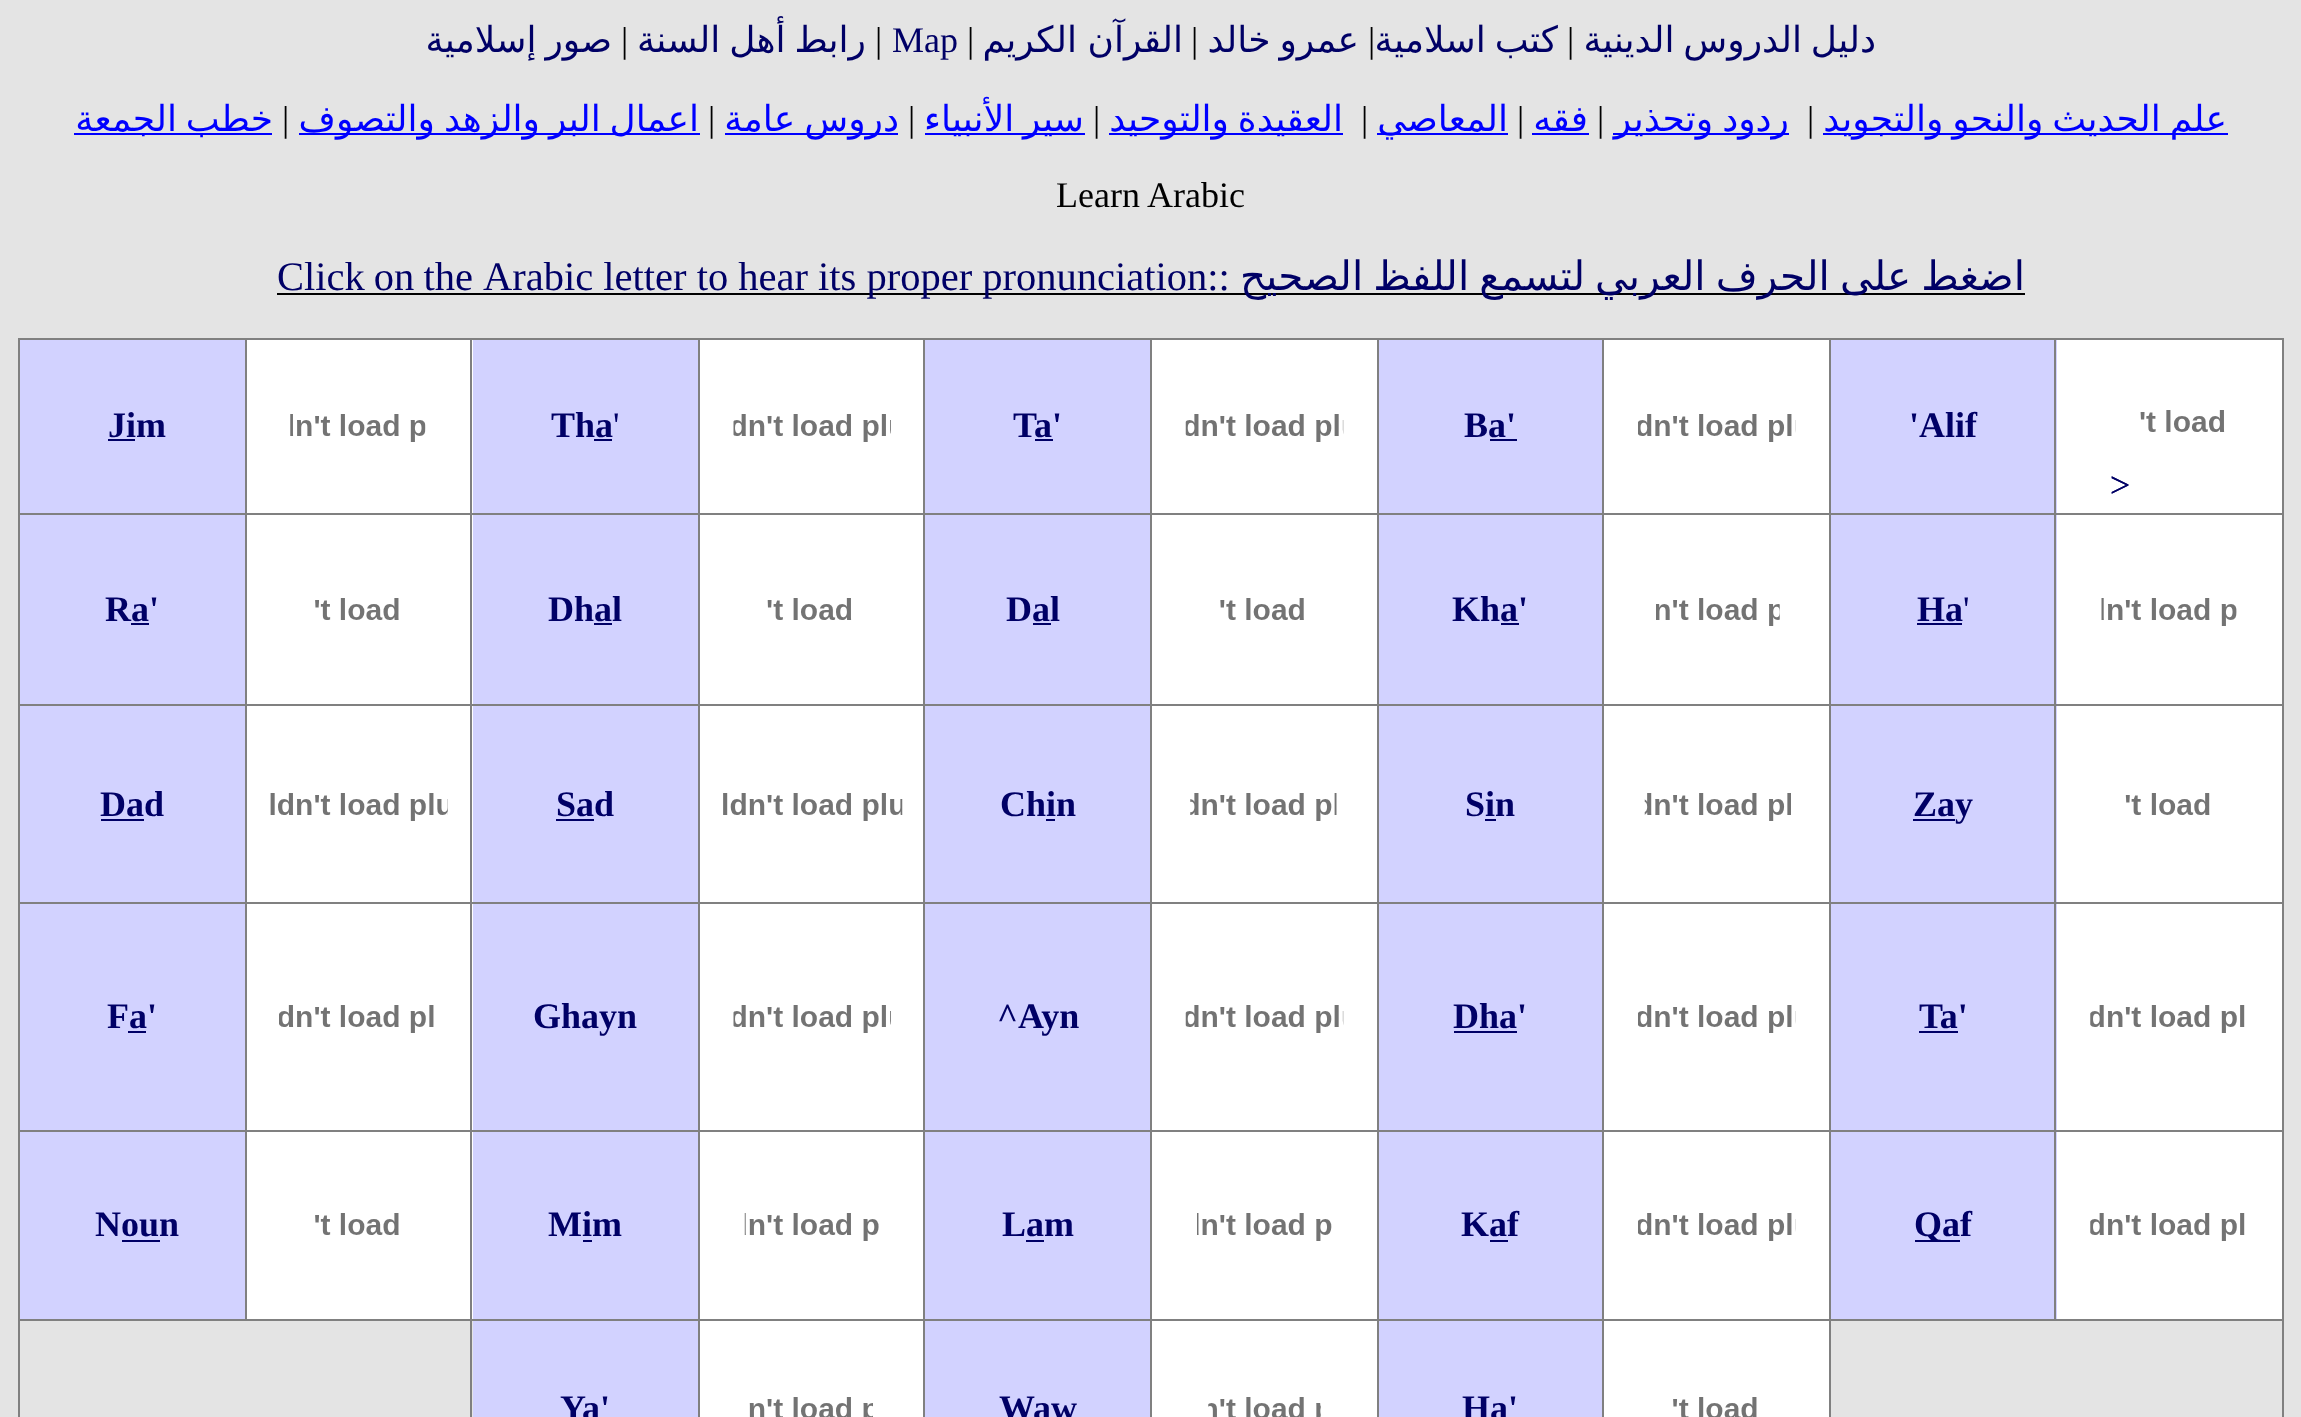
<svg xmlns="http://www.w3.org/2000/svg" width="2301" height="1417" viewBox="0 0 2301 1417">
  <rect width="100%" height="100%" fill="#e4e4e4"/>
  <path d="M1823 133h405v2H1823z" fill="#00f"/>
  <path d="M1613 133h176v2H1613z" fill="#00f"/>
  <path d="M1532 133h57v2H1532z" fill="#00f"/>
  <path d="M1377 133h131v2H1377z" fill="#00f"/>
  <path d="M1109 133h234v2H1109z" fill="#00f"/>
  <path d="M925 133h160v2H925z" fill="#00f"/>
  <path d="M725 133h173v2H725z" fill="#00f"/>
  <path d="M299 133h401v2H299z" fill="#00f"/>
  <path d="M74 133h198v2H74z" fill="#00f"/>
  <path d="M277 293h1748v2H277z" fill="#000"/>
  <path d="M18 338h2266v2H18z" fill="#808080"/>
  <path d="M2282 338h2v1079H2282z" fill="#808080"/>
  <path d="M18 338h2v1079H18z" fill="#808080"/>
  <path d="M1831 340h226v173H1831z" fill="#d2d2ff"/>
  <path d="M2054 513h230v2H2054z" fill="#808080"/>
  <path d="M1831 515h226v387H1831z" fill="#d2d2ff"/>
  <path d="M2057 515h225v387H2057z" fill="#fff"/>
  <path d="M2054 704h230v2H2054z" fill="#808080"/>
  <path d="M2054 902h230v2H2054z" fill="#808080"/>
  <path d="M1831 904h226v226H1831z" fill="#d2d2ff"/>
  <path d="M2054 1130h230v2H2054z" fill="#808080"/>
  <path d="M1831 1132h226v187H1831z" fill="#d2d2ff"/>
  <path d="M1829 1319h455v2H1829z" fill="#808080"/>
  <path d="M2054 1130h2v191H2054z" fill="#808080"/>
  <path d="M1829 1130h228v2H1829z" fill="#808080"/>
  <path d="M2054 902h2v230H2054z" fill="#808080"/>
  <path d="M1829 902h228v2H1829z" fill="#808080"/>
  <path d="M2054 704h2v201H2054z" fill="#808080"/>
  <path d="M1829 704h228v2H1829z" fill="#808080"/>
  <path d="M2054 513h2v194H2054z" fill="#808080"/>
  <path d="M1829 513h228v2H1829z" fill="#808080"/>
  <path d="M1829 1319h2v98H1829z" fill="#808080"/>
  <path d="M1602 1319h230v2H1602z" fill="#808080"/>
  <path d="M1829 1130h2v191H1829z" fill="#808080"/>
  <path d="M1602 1130h230v2H1602z" fill="#808080"/>
  <path d="M1829 902h2v230H1829z" fill="#808080"/>
  <path d="M1602 902h230v2H1602z" fill="#808080"/>
  <path d="M1829 704h2v201H1829z" fill="#808080"/>
  <path d="M1604 515h225v387H1604z" fill="#fff"/>
  <path d="M1602 704h230v2H1602z" fill="#808080"/>
  <path d="M1829 513h2v194H1829z" fill="#808080"/>
  <path d="M1602 513h230v2H1602z" fill="#808080"/>
  <path d="M1829 338h2v177H1829z" fill="#808080"/>
  <path d="M1604 340h225v173H1604z" fill="#fff"/>
  <path d="M1602 1319h2v98H1602z" fill="#808080"/>
  <path d="M1377 1319h227v2H1377z" fill="#808080"/>
  <path d="M1602 1130h2v191H1602z" fill="#808080"/>
  <path d="M1377 1130h227v2H1377z" fill="#808080"/>
  <path d="M1602 902h2v230H1602z" fill="#808080"/>
  <path d="M1377 902h227v2H1377z" fill="#808080"/>
  <path d="M1602 704h2v201H1602z" fill="#808080"/>
  <path d="M1379 515h223v387H1379z" fill="#d2d2ff"/>
  <path d="M1377 704h227v2H1377z" fill="#808080"/>
  <path d="M1602 513h2v194H1602z" fill="#808080"/>
  <path d="M1377 513h227v2H1377z" fill="#808080"/>
  <path d="M1602 338h2v177H1602z" fill="#808080"/>
  <image x="1638" y="414" width="158" height="28" href="img/1.png"/>
  <path d="M1379 340h223v173H1379z" fill="#d2d2ff"/>
  <path d="M1377 1319h2v98H1377z" fill="#808080"/>
  <path d="M1150 1319h229v2H1150z" fill="#808080"/>
  <path d="M1377 1130h2v191H1377z" fill="#808080"/>
  <path d="M1150 1130h229v2H1150z" fill="#808080"/>
  <path d="M1377 902h2v230H1377z" fill="#808080"/>
  <path d="M1150 902h229v2H1150z" fill="#808080"/>
  <path d="M1377 704h2v201H1377z" fill="#808080"/>
  <path d="M1152 515h225v387H1152z" fill="#fff"/>
  <path d="M1150 704h229v2H1150z" fill="#808080"/>
  <path d="M1377 513h2v194H1377z" fill="#808080"/>
  <path d="M1150 513h229v2H1150z" fill="#808080"/>
  <path d="M1377 338h2v177H1377z" fill="#808080"/>
  <path d="M1490 439h27v2H1490z" fill="#006"/>
  <path d="M1152 340h225v173H1152z" fill="#fff"/>
  <path d="M1150 1319h2v98H1150z" fill="#808080"/>
  <path d="M923 1319h229v2H923z" fill="#808080"/>
  <path d="M1150 1130h2v191H1150z" fill="#808080"/>
  <path d="M923 1130h229v2H923z" fill="#808080"/>
  <path d="M1150 902h2v230H1150z" fill="#808080"/>
  <path d="M923 902h229v2H923z" fill="#808080"/>
  <path d="M1150 704h2v201H1150z" fill="#808080"/>
  <path d="M925 515h225v387H925z" fill="#d2d2ff"/>
  <path d="M923 704h229v2H923z" fill="#808080"/>
  <path d="M1150 513h2v194H1150z" fill="#808080"/>
  <path d="M923 513h229v2H923z" fill="#808080"/>
  <path d="M1150 338h2v177H1150z" fill="#808080"/>
  <image x="1185" y="414" width="159" height="28" href="img/2.png"/>
  <path d="M925 340h225v173H925z" fill="#d2d2ff"/>
  <path d="M923 1319h2v98H923z" fill="#808080"/>
  <path d="M698 1319h227v2H698z" fill="#808080"/>
  <path d="M923 1130h2v191H923z" fill="#808080"/>
  <path d="M698 1130h227v2H698z" fill="#808080"/>
  <path d="M923 902h2v230H923z" fill="#808080"/>
  <path d="M698 902h227v2H698z" fill="#808080"/>
  <path d="M923 704h2v201H923z" fill="#808080"/>
  <path d="M700 515h223v387H700z" fill="#fff"/>
  <path d="M698 704h227v2H698z" fill="#808080"/>
  <path d="M923 513h2v194H923z" fill="#808080"/>
  <path d="M698 513h227v2H698z" fill="#808080"/>
  <path d="M923 338h2v177H923z" fill="#808080"/>
  <path d="M1035 439h18v2H1035z" fill="#006"/>
  <path d="M700 340h223v173H700z" fill="#fff"/>
  <path d="M698 1319h2v98H698z" fill="#808080"/>
  <path d="M470 1319h230v2H470z" fill="#808080"/>
  <path d="M698 1130h2v191H698z" fill="#808080"/>
  <path d="M470 1130h230v2H470z" fill="#808080"/>
  <path d="M698 902h2v230H698z" fill="#808080"/>
  <path d="M470 902h230v2H470z" fill="#808080"/>
  <path d="M698 704h2v201H698z" fill="#808080"/>
  <path d="M473 515h225v387H473z" fill="#d2d2ff"/>
  <path d="M247 515h226v387H247z" fill="#fff"/>
  <path d="M470 704h230v2H470z" fill="#808080"/>
  <path d="M698 513h2v194H698z" fill="#808080"/>
  <path d="M470 513h230v2H470z" fill="#808080"/>
  <path d="M698 338h2v177H698z" fill="#808080"/>
  <image x="733" y="414" width="158" height="28" href="img/3.png"/>
  <path d="M473 340h225v173H473z" fill="#d2d2ff"/>
  <path d="M247 340h226v173H247z" fill="#fff"/>
  <path d="M247 904h226v226H247z" fill="#fff"/>
  <path d="M247 1132h226v187H247z" fill="#fff"/>
  <path d="M470 1319h2v98H470z" fill="#808080"/>
  <path d="M18 1319h455v2H18z" fill="#808080"/>
  <path d="M470 1130h2v191H470z" fill="#808080"/>
  <path d="M245 1130h228v2H245z" fill="#808080"/>
  <path d="M470 902h2v230H470z" fill="#808080"/>
  <path d="M245 902h228v2H245z" fill="#808080"/>
  <path d="M470 704h2v201H470z" fill="#808080"/>
  <path d="M245 704h228v2H245z" fill="#808080"/>
  <path d="M470 513h2v194H470z" fill="#808080"/>
  <path d="M245 513h228v2H245z" fill="#808080"/>
  <path d="M470 338h2v177H470z" fill="#808080"/>
  <path d="M594 439h18v2H594z" fill="#006"/>
  <path d="M245 1130h2v191H245z" fill="#808080"/>
  <path d="M18 1130h230v2H18z" fill="#808080"/>
  <path d="M245 902h2v230H245z" fill="#808080"/>
  <path d="M18 902h230v2H18z" fill="#808080"/>
  <path d="M245 704h2v201H245z" fill="#808080"/>
  <path d="M20 515h225v387H20z" fill="#d2d2ff"/>
  <path d="M18 704h230v2H18z" fill="#808080"/>
  <path d="M245 513h2v194H245z" fill="#808080"/>
  <path d="M18 513h230v2H18z" fill="#808080"/>
  <path d="M245 338h2v177H245z" fill="#808080"/>
  <image x="290" y="414" width="136" height="28" href="img/4.png"/>
  <path d="M20 340h225v173H20z" fill="#d2d2ff"/>
  <path d="M108 439h27v2H108z" fill="#006"/>
  <path d="M2057 340h225v173H2057z" fill="#fff"/>
  <path d="M2054 338h2v177H2054z" fill="#808080"/>
  <image x="2140" y="410" width="85" height="22" href="img/5.png"/>
  <image x="2111" y="476" width="18" height="18" href="img/6.png"/>
  <image x="2101" y="598" width="136" height="28" href="img/7.png"/>
  <path d="M1917 623h45v2H1917z" fill="#006"/>
  <image x="1656" y="598" width="124" height="28" href="img/8.png"/>
  <path d="M1501 623h18v2H1501z" fill="#006"/>
  <image x="1220" y="598" width="84" height="22" href="img/9.png"/>
  <path d="M1033 623h18v2H1033z" fill="#006"/>
  <image x="767" y="598" width="85" height="22" href="img/10.png"/>
  <path d="M594 623h18v2H594z" fill="#006"/>
  <image x="315" y="598" width="84" height="22" href="img/11.png"/>
  <path d="M131 623h18v2H131z" fill="#006"/>
  <image x="2125" y="793" width="85" height="22" href="img/12.png"/>
  <path d="M1913 819h42v2H1913z" fill="#006"/>
  <image x="1644" y="793" width="147" height="28" href="img/13.png"/>
  <path d="M1485 819h11v2H1485z" fill="#006"/>
  <image x="1190" y="793" width="147" height="28" href="img/14.png"/>
  <path d="M1046 819h9v2H1046z" fill="#006"/>
  <image x="723" y="793" width="180" height="28" href="img/15.png"/>
  <path d="M556 819h38v2H556z" fill="#006"/>
  <image x="270" y="793" width="178" height="28" href="img/16.png"/>
  <path d="M101 819h43v2H101z" fill="#006"/>
  <path d="M2057 904h225v226H2057z" fill="#fff"/>
  <image x="2090" y="1005" width="155" height="28" href="img/17.png"/>
  <path d="M1919 1031h39v2H1919z" fill="#006"/>
  <path d="M1604 904h225v226H1604z" fill="#fff"/>
  <image x="1638" y="1005" width="158" height="28" href="img/1.png"/>
  <path d="M1379 904h223v226H1379z" fill="#d2d2ff"/>
  <path d="M1454 1031h63v2H1454z" fill="#006"/>
  <path d="M1152 904h225v226H1152z" fill="#fff"/>
  <image x="1185" y="1005" width="159" height="28" href="img/2.png"/>
  <path d="M925 904h225v226H925z" fill="#d2d2ff"/>
  <path d="M700 904h223v226H700z" fill="#fff"/>
  <image x="733" y="1005" width="158" height="28" href="img/3.png"/>
  <path d="M473 904h225v226H473z" fill="#d2d2ff"/>
  <image x="279" y="1005" width="155" height="28" href="img/18.png"/>
  <path d="M20 904h225v226H20z" fill="#d2d2ff"/>
  <path d="M128 1031h18v2H128z" fill="#006"/>
  <path d="M2057 1132h225v187H2057z" fill="#fff"/>
  <image x="2090" y="1213" width="155" height="28" href="img/17.png"/>
  <path d="M1915 1240h45v2H1915z" fill="#006"/>
  <path d="M1604 1132h225v187H1604z" fill="#fff"/>
  <image x="1638" y="1213" width="158" height="28" href="img/1.png"/>
  <path d="M1379 1132h223v187H1379z" fill="#d2d2ff"/>
  <path d="M1490 1240h18v2H1490z" fill="#006"/>
  <path d="M1152 1132h225v187H1152z" fill="#fff"/>
  <image x="1197" y="1213" width="135" height="28" href="img/19.png"/>
  <path d="M925 1132h225v187H925z" fill="#d2d2ff"/>
  <path d="M1026 1240h18v2H1026z" fill="#006"/>
  <path d="M700 1132h223v187H700z" fill="#fff"/>
  <image x="744" y="1213" width="135" height="28" href="img/20.png"/>
  <path d="M473 1132h225v187H473z" fill="#d2d2ff"/>
  <path d="M583 1240h9v2H583z" fill="#006"/>
  <image x="315" y="1213" width="84" height="22" href="img/11.png"/>
  <path d="M20 1132h225v187H20z" fill="#d2d2ff"/>
  <path d="M122 1240h38v2H122z" fill="#006"/>
  <path d="M1604 1321h225v96H1604z" fill="#fff"/>
  <image x="1673" y="1397" width="84" height="20" href="img/21.png"/>
  <path d="M1379 1321h223v96H1379z" fill="#d2d2ff"/>
  <path d="M1152 1321h225v96H1152z" fill="#fff"/>
  <image x="1208" y="1397" width="113" height="20" href="img/22.png"/>
  <path d="M925 1321h225v96H925z" fill="#d2d2ff"/>
  <path d="M700 1321h223v96H700z" fill="#fff"/>
  <image x="749" y="1397" width="124" height="20" href="img/23.png"/>
  <path d="M473 1321h225v96H473z" fill="#d2d2ff"/>
  <text x="1876" y="52" word-spacing="-2.5" font-family="DejaVu Sans" font-size="36" direction="rtl" fill="#006">دليل الدروس الدينية</text>
  <text x="1567" y="52" font-family="Liberation Serif" font-size="36" fill="#000">|</text>
  <text x="1558" y="52" word-spacing="-2.5" font-family="DejaVu Sans" font-size="36" direction="rtl" fill="#006">كتب اسلامية</text>
  <text x="1368" y="52" font-family="Liberation Serif" font-size="36" fill="#000">|</text>
  <text x="1359" y="52" word-spacing="-2.5" font-family="DejaVu Sans" font-size="36" direction="rtl" fill="#006">عمرو خالد</text>
  <text x="1191" y="52" font-family="Liberation Serif" font-size="36" fill="#000">|</text>
  <text x="1183" y="52" word-spacing="-1" font-family="DejaVu Sans" font-size="36" direction="rtl" fill="#006">القرآن الكريم</text>
  <text x="967" y="52" font-family="Liberation Serif" font-size="36" fill="#000">|</text>
  <text x="892" y="52" font-family="Liberation Serif" font-size="36" fill="#006">Map</text>
  <text x="875" y="52" font-family="Liberation Serif" font-size="36" fill="#000">|</text>
  <text x="866" y="52" word-spacing="-2.5" font-family="DejaVu Sans" font-size="36" direction="rtl" fill="#006">رابط أهل السنة</text>
  <text x="621" y="52" font-family="Liberation Serif" font-size="36" fill="#000">|</text>
  <text x="612" y="52" word-spacing="-2.5" font-family="DejaVu Sans" font-size="36" direction="rtl" fill="#006">صور إسلامية</text>
  <text x="2227" y="131" word-spacing="-2.5" font-family="DejaVu Sans" font-size="36" direction="rtl" fill="#00f">علم الحديث والنحو والتجويد</text>
  <text x="1807" y="131" font-family="Liberation Serif" font-size="36" fill="#000">|</text>
  <text x="1789" y="131" word-spacing="-2.5" font-family="DejaVu Sans" font-size="36" direction="rtl" fill="#00f">ردود وتحذير</text>
  <text x="1597" y="131" font-family="Liberation Serif" font-size="36" fill="#000">|</text>
  <text x="1588" y="131" font-family="DejaVu Sans" font-size="36" direction="rtl" fill="#00f">فقه</text>
  <text x="1517" y="131" font-family="Liberation Serif" font-size="36" fill="#000">|</text>
  <text x="1508" y="131" font-family="DejaVu Sans" font-size="36" direction="rtl" fill="#00f">المعاصي</text>
  <text x="1361" y="131" font-family="Liberation Serif" font-size="36" fill="#000">|</text>
  <g font-family="DejaVu Sans" font-size="36" direction="rtl" fill="#00f">
    <text x="1343" y="131">العقيدة</text>
    <text x="1229" y="131">والتوحيد</text>
  </g>
  <text x="1093" y="131" font-family="Liberation Serif" font-size="36" fill="#000">|</text>
  <text x="1084" y="131" word-spacing="-2.5" font-family="DejaVu Sans" font-size="36" direction="rtl" fill="#00f">سير الأنبياء</text>
  <text x="908" y="131" font-family="Liberation Serif" font-size="36" fill="#000">|</text>
  <text x="899" y="131" word-spacing="-2.5" font-family="DejaVu Sans" font-size="36" direction="rtl" fill="#00f">دروس عامة</text>
  <text x="708" y="131" font-family="Liberation Serif" font-size="36" fill="#000">|</text>
  <text x="699" y="131" word-spacing="-2.5" font-family="DejaVu Sans" font-size="36" direction="rtl" fill="#00f">اعمال البر والزهد والتصوف</text>
  <text x="282" y="131" font-family="Liberation Serif" font-size="36" fill="#000">|</text>
  <g font-family="DejaVu Sans" font-size="36" direction="rtl" fill="#00f">
    <text x="273" y="131">خطب</text>
    <text x="177" y="131">الجمعة</text>
  </g>
  <text x="1056" y="207" font-family="Liberation Serif" font-size="36" fill="#000">Learn Arabic</text>
  <text x="2025" y="290" word-spacing="-2.75" font-family="DejaVu Sans" font-size="40.5" direction="rtl" fill="#006">اضغط على الحرف العربي لتسمع اللفظ الصحيح</text>
  <g font-family="Liberation Serif" font-size="40.5" fill="#006">
    <text x="483" y="290">Arabic letter to hear its proper pronunciation::</text>
    <text x="277" y="290" word-spacing="-1">Click on the</text>
  </g>
  <g font-family="Liberation Serif" font-size="36" font-weight="bold" fill="#006">
    <text x="1909" y="437">'Alif</text>
    <text x="1464" y="437">Ba'</text>
    <text x="1013" y="437">T</text>
    <text x="1034" y="437">a'</text>
  </g>
  <text x="613" y="437" font-family="Liberation Serif" font-size="36" fill="#006">'</text>
  <g font-family="Liberation Serif" font-size="36" font-weight="bold" fill="#006">
    <text x="551" y="437">Tha</text>
    <text x="108" y="437">Jim</text>
  </g>
  <g font-family="Liberation Serif" font-size="36" fill="#006">
    <text x="2110" y="497">&gt;</text>
    <text x="1963" y="621">'</text>
  </g>
  <g font-family="Liberation Serif" font-size="36" font-weight="bold" fill="#006">
    <text x="1917" y="621">Ha</text>
    <text x="1452" y="621">Kha'</text>
    <text x="1006" y="621">Dal</text>
    <text x="548" y="621">Dhal</text>
    <text x="105" y="621">Ra'</text>
    <text x="1913" y="816">Zay</text>
    <text x="1465" y="816">Sin</text>
    <text x="1000" y="816">Chin</text>
    <text x="556" y="816">Sad</text>
    <text x="100" y="816">Dad</text>
    <text x="1919" y="1028">Ta'</text>
    <text x="1453" y="1028">Dha'</text>
    <text x="997" y="1028">^Ayn</text>
    <text x="533" y="1028">Ghayn</text>
    <text x="107" y="1028">Fa'</text>
    <text x="1914" y="1236">Qaf</text>
    <text x="1461" y="1236">Kaf</text>
    <text x="1002" y="1236">Lam</text>
    <text x="548" y="1236">Mim</text>
    <text x="95" y="1236">Noun</text>
    <text x="1462" y="1420">Ha'</text>
    <text x="999" y="1420">W</text>
    <text x="1033" y="1420">aw</text>
    <text x="560" y="1420">Y</text>
    <text x="582" y="1420">a'</text>
  </g>
</svg>
